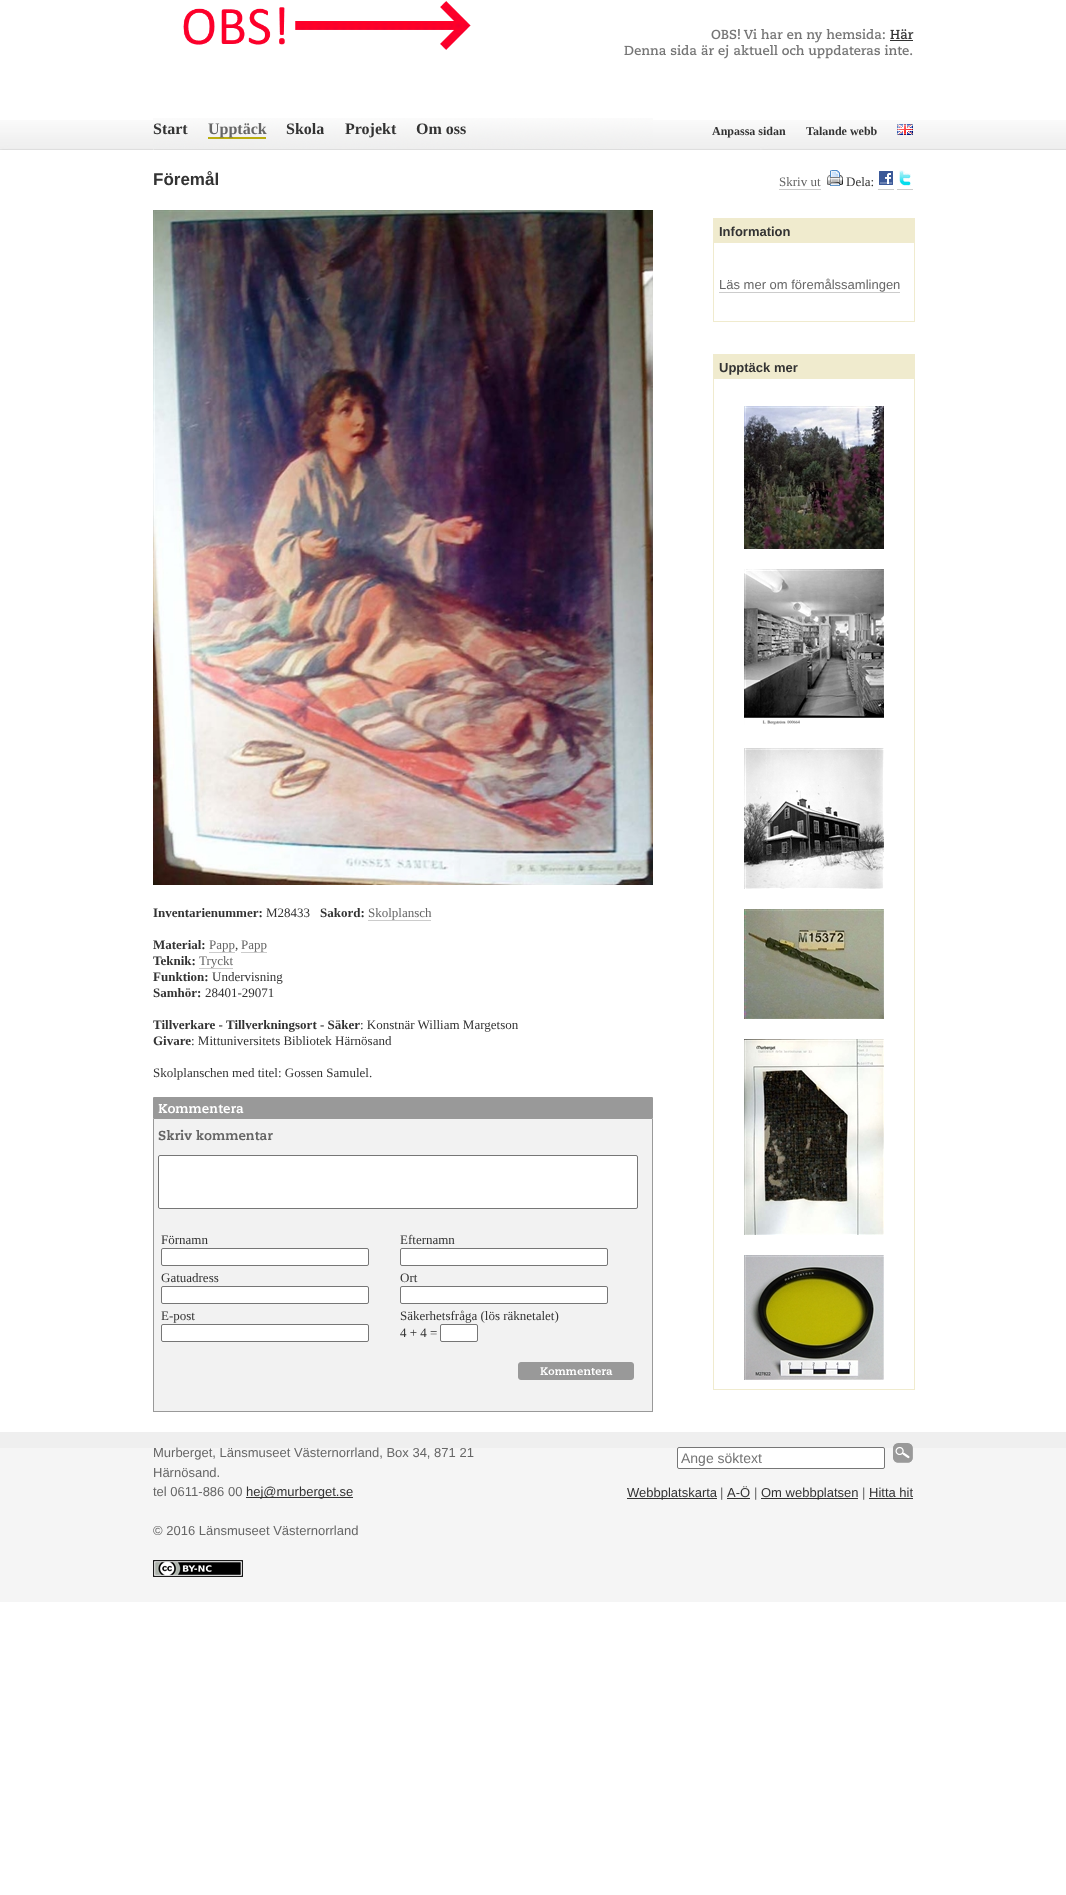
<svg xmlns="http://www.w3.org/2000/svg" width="1066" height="1895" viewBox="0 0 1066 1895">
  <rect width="100%" height="100%" fill="#fff"/>
  <image x="0" y="120" width="1066" height="30" href="img/1.png"/>
  <image x="183" y="1" width="288" height="49" href="img/2.png"/>
  <image x="711" y="28" width="174" height="15" href="img/3.png"/>
  <image x="890" y="29" width="24" height="11" href="img/4.png"/>
  <path d="M890 40h23v1H890z" fill="#333"/>
  <image x="624" y="44" width="289" height="15" href="img/5.png"/>
  <image x="153" y="118" width="500" height="32" href="img/6.png"/>
  <path d="M208 137h58v2H208z" fill="#baad0e"/>
  <image x="897" y="124" width="16" height="11" href="img/7.png"/>
  <image x="153" y="210" width="500" height="675" href="img/8.png"/>
  <path d="M368 920h63v1H368z" fill="#ccc"/>
  <path d="M209 952h26v1H209z" fill="#ccc"/>
  <path d="M241 952h26v1H241z" fill="#ccc"/>
  <path d="M199 968h34v1H199z" fill="#ccc"/>
  <image x="154" y="1098" width="498" height="20" href="img/9.png"/>
  <path d="M153.5 1097.5h499v21H153.5z" fill="none" stroke="#999"/>
  <path d="M154 1119h498v292H154z" fill="#f2f2f2"/>
  <path d="M652 1119h1v293H652z" fill="#999"/>
  <path d="M153 1411h500v1H153z" fill="#999"/>
  <path d="M153 1119h1v293H153z" fill="#999"/>
  <image x="158" y="1129" width="115" height="12" href="img/10.png"/>
  <rect x="158.5" y="1155.5" width="479" height="53" rx="1.5" fill="#fff" stroke="#767676"/>
  <rect x="161.5" y="1248.5" width="207" height="17" rx="1.5" fill="#fff" stroke="#767676"/>
  <rect x="400.5" y="1248.5" width="207" height="17" rx="1.5" fill="#fff" stroke="#767676"/>
  <rect x="161.5" y="1286.5" width="207" height="17" rx="1.5" fill="#fff" stroke="#767676"/>
  <rect x="400.5" y="1286.5" width="207" height="17" rx="1.5" fill="#fff" stroke="#767676"/>
  <rect x="161.5" y="1324.5" width="207" height="17" rx="1.5" fill="#fff" stroke="#767676"/>
  <rect x="440.5" y="1324.5" width="37" height="17" rx="1.5" fill="#fff" stroke="#767676"/>
  <image x="518" y="1362" width="116" height="18" href="img/11.png"/>
  <path d="M779 189h42v1H779z" fill="#ccc"/>
  <image x="827" y="170" width="16" height="16" href="img/12.png"/>
  <path d="M878 189h16v1H878z" fill="#ccc"/>
  <path d="M897 189h16v1H897z" fill="#ccc"/>
  <image x="879" y="171" width="14" height="14" href="img/13.png"/>
  <image x="899" y="170" width="12" height="16" href="img/14.png"/>
  <path d="M714 218h200v25H714z" fill="#f0ebce"/>
  <path d="M914 218h1v104H914z" fill="#f0ebce"/>
  <path d="M713 321h202v1H713z" fill="#f0ebce"/>
  <path d="M713 218h1v104H713z" fill="#f0ebce"/>
  <path d="M719 292h181v1H719z" fill="#ccc"/>
  <path d="M714 354h200v25H714z" fill="#f0ebce"/>
  <path d="M914 354h1v1036H914z" fill="#f0ebce"/>
  <path d="M713 1389h202v1H713z" fill="#f0ebce"/>
  <path d="M713 354h1v1036H713z" fill="#f0ebce"/>
  <image x="744" y="406" width="140" height="143" href="img/15.png"/>
  <image x="744" y="569" width="140" height="156" href="img/16.png"/>
  <image x="744" y="748" width="140" height="141" href="img/17.png"/>
  <image x="744" y="909" width="140" height="110" href="img/18.png"/>
  <image x="744" y="1039" width="140" height="196" href="img/19.png"/>
  <image x="744" y="1255" width="140" height="125" href="img/20.png"/>
  <path d="M0 1448h1066v154H0z" fill="#f5f5f5"/>
  <path d="M0 1432h1066v16H0z" fill="#efefef"/>
  <path d="M246 1497h107v1H246z" fill="#333"/>
  <image x="153" y="1560" width="90" height="17" href="img/21.png"/>
  <rect x="677.5" y="1447.5" width="207" height="21" rx="1.5" fill="#fff" stroke="#767676"/>
  <image x="893" y="1443" width="20" height="20" href="img/22.png"/>
  <path d="M627 1498h90v1H627z" fill="#333"/>
  <path d="M727 1498h23v1H727z" fill="#333"/>
  <path d="M761 1498h97v1H761z" fill="#333"/>
  <path d="M869 1498h44v1H869z" fill="#333"/>
  <text x="153" y="134" font-family="Liberation Serif" font-size="16" font-weight="bold" fill="#333">Start</text>
  <text x="208" y="134" font-family="Liberation Serif" font-size="16" font-weight="bold" fill="#666">Upptäck</text>
  <g font-family="Liberation Serif" font-size="16" font-weight="bold" fill="#333">
    <text x="286" y="134">Skola</text>
    <text x="345" y="134">Projekt</text>
    <text x="416" y="134">Om oss</text>
  </g>
  <g font-family="Liberation Serif" font-size="12" font-weight="bold" fill="#333">
    <text x="712" y="135">Anpassa sidan</text>
    <text x="806" y="135">Talande webb</text>
  </g>
  <text x="153" y="185" font-family="Liberation Sans" font-size="17" font-weight="bold" fill="#333">Föremål</text>
  <text x="153" y="917" font-family="Liberation Serif" font-size="13" font-weight="bold" fill="#333">Inventarienummer:</text>
  <text x="266" y="917" font-family="Liberation Serif" font-size="13" fill="#333">M28433</text>
  <text x="320" y="917" font-family="Liberation Serif" font-size="13" font-weight="bold" fill="#333">Sakord:</text>
  <text x="368" y="917" font-family="Liberation Serif" font-size="13" fill="#666">Skolplansch</text>
  <text x="153" y="949" font-family="Liberation Serif" font-size="13" font-weight="bold" fill="#333">Material:</text>
  <text x="209" y="949" font-family="Liberation Serif" font-size="13" fill="#666">Papp</text>
  <text x="235" y="949" font-family="Liberation Serif" font-size="13" fill="#333">,</text>
  <text x="241" y="949" font-family="Liberation Serif" font-size="13" fill="#666">Papp</text>
  <text x="153" y="965" font-family="Liberation Serif" font-size="13" font-weight="bold" fill="#333">Teknik:</text>
  <text x="199" y="965" font-family="Liberation Serif" font-size="13" fill="#666">Tryckt</text>
  <text x="153" y="981" font-family="Liberation Serif" font-size="13" font-weight="bold" fill="#333">Funktion:</text>
  <text x="212" y="981" font-family="Liberation Serif" font-size="13" fill="#333">Undervisning</text>
  <text x="153" y="997" font-family="Liberation Serif" font-size="13" font-weight="bold" fill="#333">Samhör:</text>
  <text x="205" y="997" font-family="Liberation Serif" font-size="13" fill="#333">28401-29071</text>
  <text x="153" y="1029" font-family="Liberation Serif" font-size="13" font-weight="bold" fill="#333">Tillverkare - Tillverkningsort - Säker</text>
  <text x="360" y="1029" font-family="Liberation Serif" font-size="13" fill="#333">: Konstnär William Margetson</text>
  <text x="153" y="1045" font-family="Liberation Serif" font-size="13" font-weight="bold" fill="#333">Givare</text>
  <g font-family="Liberation Serif" font-size="13" fill="#333">
    <text x="191" y="1045">: Mittuniversitets Bibliotek Härnösand</text>
    <text x="153" y="1077">Skolplanschen med titel: Gossen Samulel.</text>
    <text x="161" y="1244">Förnamn</text>
    <text x="400" y="1244">Efternamn</text>
    <text x="161" y="1282">Gatuadress</text>
    <text x="400" y="1282">Ort</text>
    <text x="161" y="1320">E-post</text>
    <text x="400" y="1320">Säkerhetsfråga (lös räknetalet)</text>
    <text x="400" y="1337">4 + 4 =</text>
  </g>
  <text x="779" y="186" font-family="Liberation Serif" font-size="13" fill="#666">Skriv ut</text>
  <text x="846" y="186" font-family="Liberation Serif" font-size="13" fill="#333">Dela:</text>
  <text x="719" y="236" font-family="Liberation Sans" font-size="13" font-weight="bold" fill="#333">Information</text>
  <text x="719" y="289" font-family="Liberation Sans" font-size="13" fill="#666">Läs mer om föremålssamlingen</text>
  <text x="719" y="372" font-family="Liberation Sans" font-size="13" font-weight="bold" fill="#333">Upptäck mer</text>
  <g font-family="Liberation Sans" font-size="13" fill="#666">
    <text x="153" y="1457">Murberget, Länsmuseet Västernorrland, Box 34, 871 21</text>
    <text x="153" y="1477">Härnösand.</text>
    <text x="153" y="1496">tel 0611-886 00</text>
  </g>
  <text x="246" y="1496" font-family="Liberation Sans" font-size="13" fill="#333">hej@murberget.se</text>
  <text x="153" y="1535" font-family="Liberation Sans" font-size="13" fill="#666">© 2016 Länsmuseet Västernorrland</text>
  <text x="681" y="1463" font-family="Liberation Sans" font-size="14" fill="#757575">Ange söktext</text>
  <text x="627" y="1497" font-family="Liberation Sans" font-size="13" fill="#333">Webbplatskarta</text>
  <text x="720" y="1497" font-family="Liberation Sans" font-size="13" fill="#666">|</text>
  <text x="727" y="1497" font-family="Liberation Sans" font-size="13" fill="#333">A-Ö</text>
  <text x="754" y="1497" font-family="Liberation Sans" font-size="13" fill="#666">|</text>
  <text x="761" y="1497" font-family="Liberation Sans" font-size="13" fill="#333">Om webbplatsen</text>
  <text x="862" y="1497" font-family="Liberation Sans" font-size="13" fill="#666">|</text>
  <text x="869" y="1497" font-family="Liberation Sans" font-size="13" fill="#333">Hitta hit</text>
</svg>
